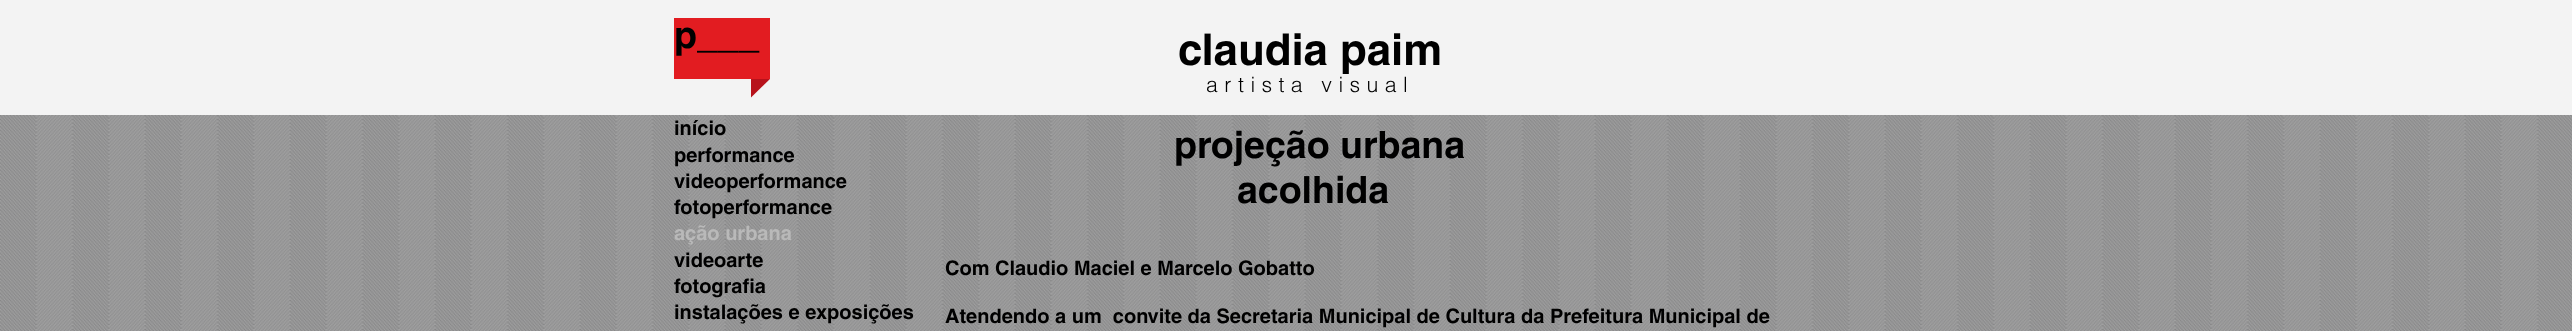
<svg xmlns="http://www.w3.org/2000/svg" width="2572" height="331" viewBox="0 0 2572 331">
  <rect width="100%" height="100%" fill="#a7a7a7"/>
  <path d="M0 0h2572v115H0z" fill="#f3f3f3"/>
  <path d="M674 18h96v61H674z" fill="#e21c21"/>
  <path d="M751 79H770L751 97.5Z" fill="#b7121b"/>
  <image x="0" y="115" width="2572" height="216" href="img/1.png"/>
  <text x="674" y="48" font-family="helvetica" font-size="37.5" font-weight="bold" fill="#000">p___</text>
  <text x="1178" y="65" font-family="helvetica" font-size="43.75" font-weight="bold" fill="#000">claudia paim</text>
  <text x="1206" y="92" font-family="helvetica" font-size="21.25" font-weight="300" letter-spacing="6.4" fill="#000">artista visual</text>
  <g font-family="helvetica" font-size="20" font-weight="bold" fill="#000">
    <text x="674" y="135">início</text>
    <text x="674" y="162">performance</text>
    <text x="674" y="188">videoperformance</text>
    <text x="674" y="214">fotoperformance</text>
  </g>
  <text x="674" y="240" font-family="helvetica" font-size="20" font-weight="bold" fill="#b9b9b9">ação urbana</text>
  <g font-family="helvetica" font-size="20" font-weight="bold" fill="#000">
    <text x="674" y="267">videoarte</text>
    <text x="674" y="293">fotografia</text>
    <text x="674" y="319">instalações e exposições</text>
  </g>
  <g font-family="helvetica" font-size="37.5" font-weight="bold" fill="#000">
    <text x="1174" y="158">projeção urbana</text>
    <text x="1237" y="203">acolhida</text>
  </g>
  <g font-family="helvetica" font-size="20" font-weight="bold" fill="#000">
    <text x="945" y="275">Com Claudio Maciel e Marcelo Gobatto</text>
    <text x="945" y="323" xml:space="preserve">Atendendo a um  convite da Secretaria Municipal de Cultura da Prefeitura Municipal de</text>
  </g>
</svg>
